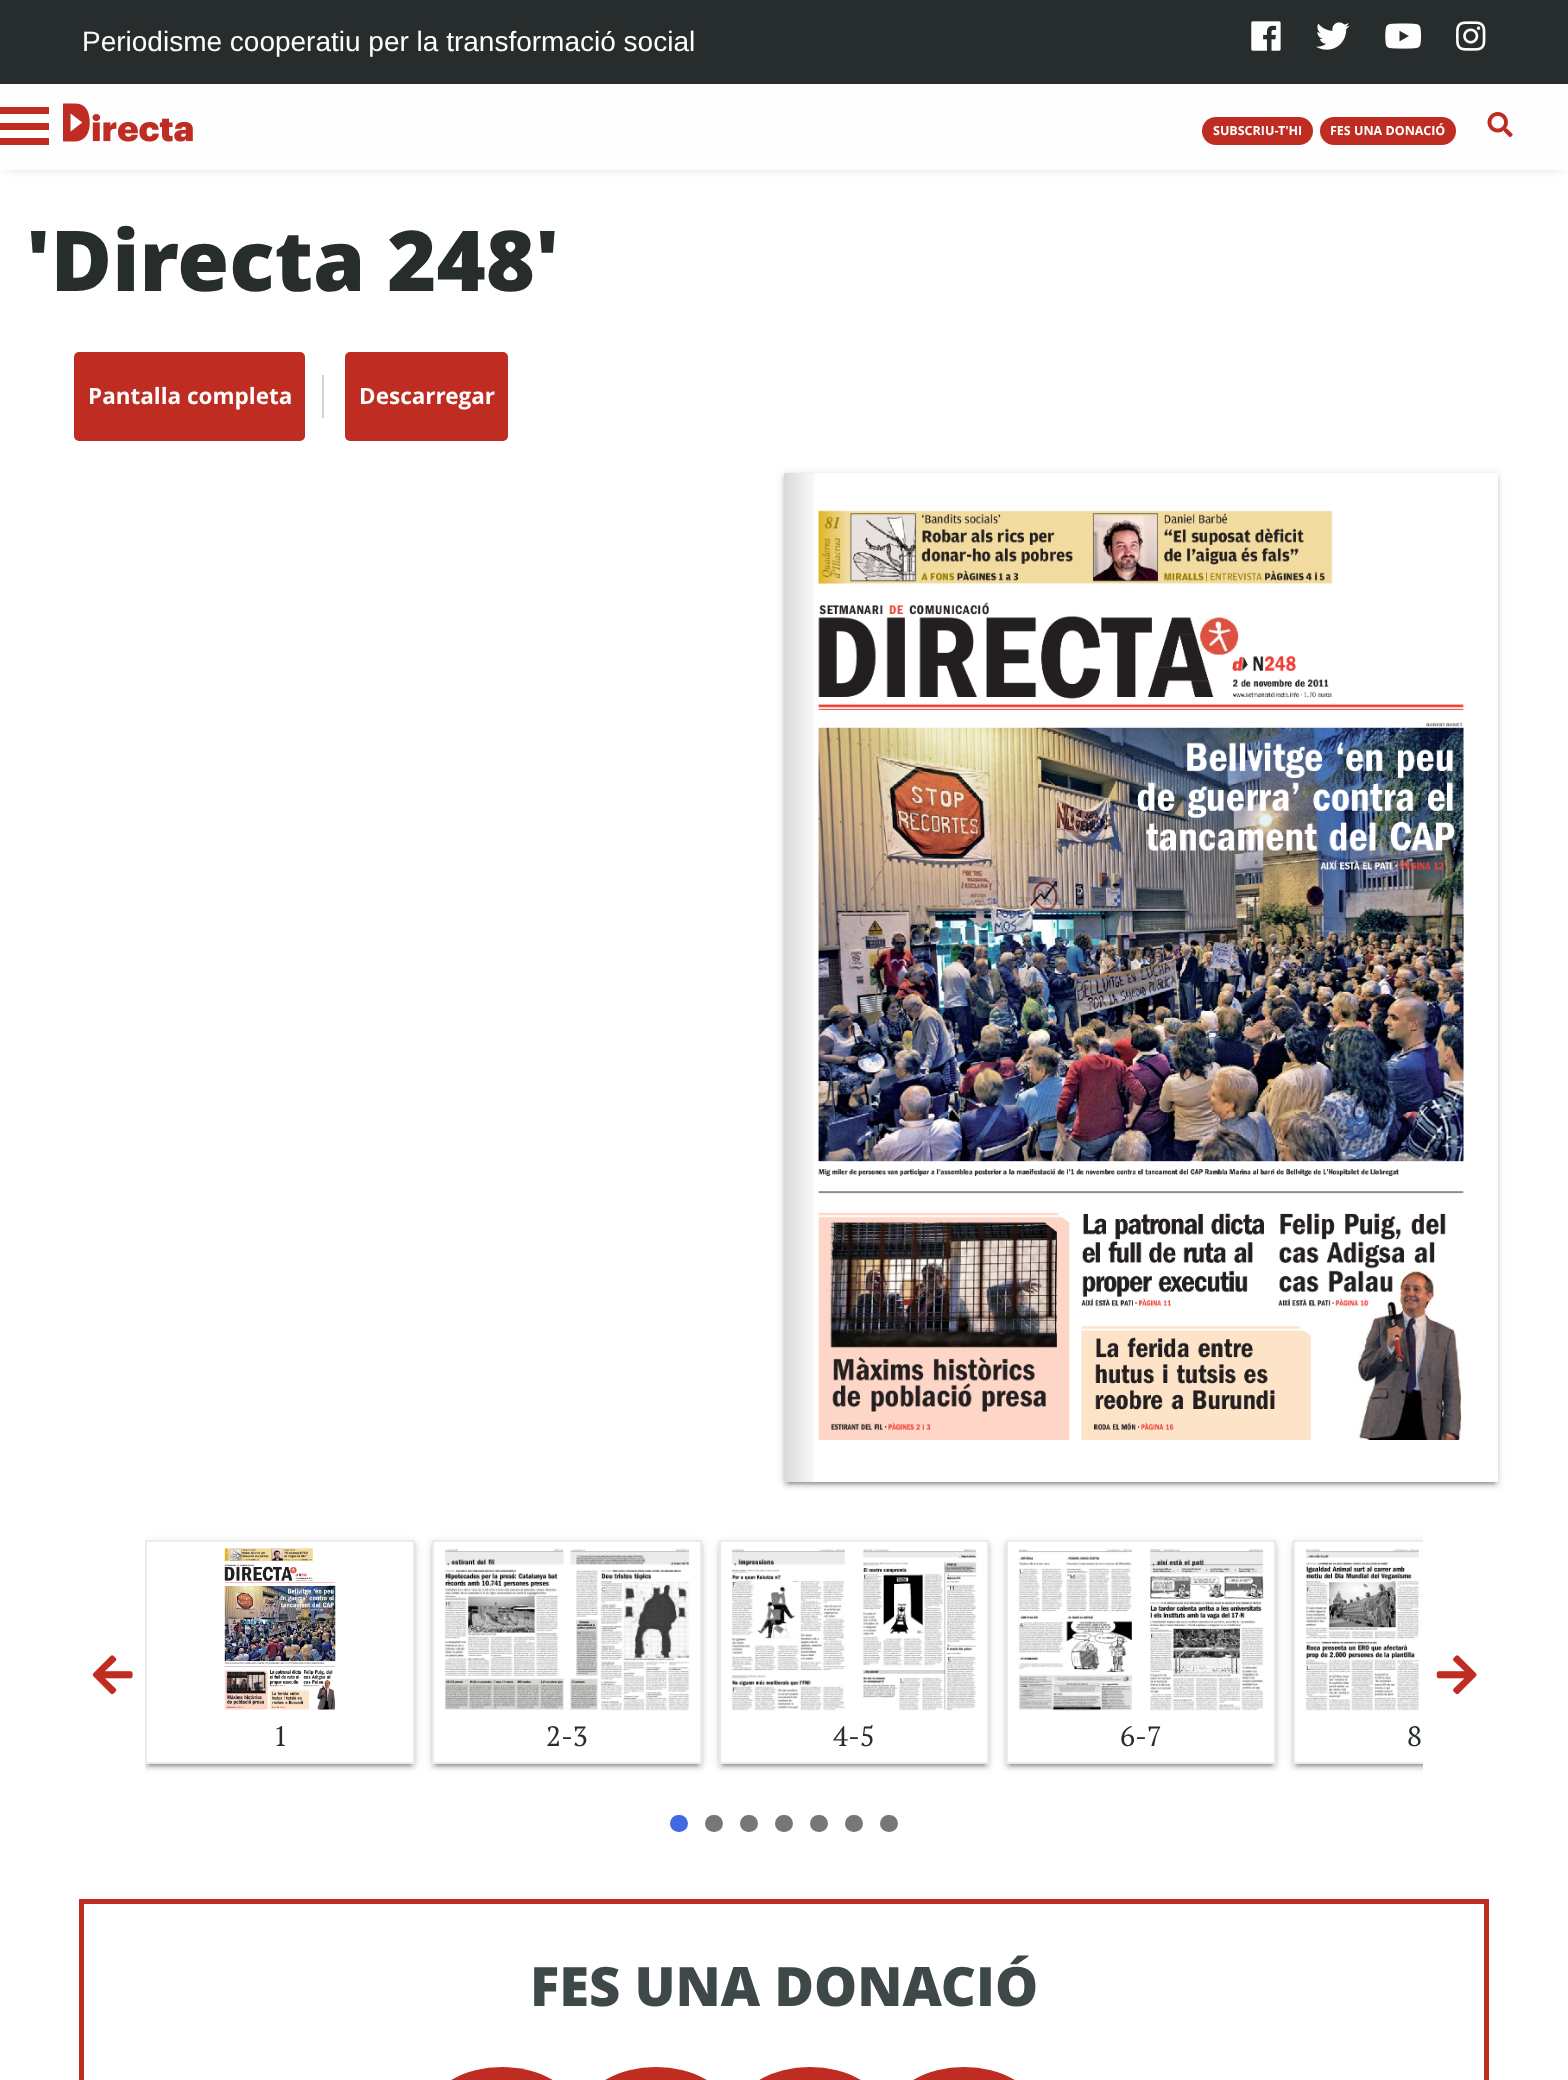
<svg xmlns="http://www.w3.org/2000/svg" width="1568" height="2080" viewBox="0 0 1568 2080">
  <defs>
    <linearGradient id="g1" gradientUnits="userSpaceOnUse" x1="1498" y1="977" x2="784" y2="977"><stop offset="0.95" stop-color="#000" stop-opacity="0"/><stop offset="1" stop-color="#000" stop-opacity="0.15"/></linearGradient>
    <clipPath id="clip1"><path d="M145 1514h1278v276H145z"/></clipPath>
    <clipPath id="clip2"><path d="M145 1514h1278v276H145z"/></clipPath>
  </defs>
  <rect width="100%" height="100%" fill="#fff"/>
  <path d="M7 91h1554v72H7z" fill="#272d2d99" filter="blur(7px)"/>
  <path d="M0 0h1568v84H0z" fill="#272d2d"/>
  <image x="1251" y="21" width="30" height="30" href="img/1.png"/>
  <image x="1316" y="22" width="34" height="28" href="img/2.png"/>
  <image x="1385" y="23" width="37" height="26" href="img/3.png"/>
  <image x="1456" y="21" width="30" height="30" href="img/4.png"/>
  <path d="M0 84h1568v86H0z" fill="#fefefe"/>
  <path d="M0 107h49v7H0z" fill="#bf2c22"/>
  <path d="M0 123h49v7H0z" fill="#bf2c22"/>
  <path d="M0 138h49v7H0z" fill="#bf2c22"/>
  <image x="63" y="103" width="130" height="39" href="img/5.png"/>
  <rect x="1202" y="117" width="111" height="28" rx="14" fill="#bf2c22"/>
  <rect x="1320" y="117" width="136" height="28" rx="14" fill="#bf2c22"/>
  <image x="1487" y="112" width="26" height="26" href="img/6.png"/>
  <rect x="74" y="352" width="231" height="89" rx="5" fill="#bf2c22"/>
  <path d="M322 375h2v43H322z" fill="#d3d3d3"/>
  <rect x="345" y="352" width="163" height="89" rx="5" fill="#bf2c22"/>
  <path d="M784 474h714v1010H784z" fill="#0000001f" filter="blur(4.5px)"/>
  <path d="M788 481h707v1003H788z" fill="#00000033" filter="blur(1px)"/>
  <path d="M784 476h714v1010H784z" fill="#00000024" filter="blur(2px)"/>
  <path d="M784 473h714v1009H784z" fill="#fff"/>
  <path d="M784 473h31v1009H784z" fill="url(#g1)"/>
  <image x="818" y="510" width="646" height="930" href="img/7.png"/>
  <g clip-path="url(#clip1)">
    <path d="M145 1542h270v224H145z" fill="#0000001f" filter="blur(4.5px)"/>
  </g>
  <image x="92" y="1655" width="41" height="40" href="img/8.png"/>
  <g clip-path="url(#clip1)">
    <path d="M1293 1542h270v224H1293z" fill="#0000001f" filter="blur(4.5px)"/>
    <path d="M1297 1549h262v217H1297z" fill="#00000033" filter="blur(1px)"/>
    <path d="M1293 1544h270v224H1293z" fill="#00000024" filter="blur(2px)"/>
  </g>
  <path d="M1295 1542h128v220H1295z" fill="#fff"/>
  <g clip-path="url(#clip2)">
    <path d="M1294 1541h268v222H1294z" fill="none" stroke="#ebebeb" stroke-width="2"/>
  </g>
  <image x="1436" y="1655" width="41" height="40" href="img/9.png"/>
  <rect x="670" y="1815" width="18" height="17" rx="8.5" fill="#4169e1"/>
  <rect x="705" y="1815" width="18" height="17" rx="8.5" fill="#777"/>
  <rect x="740" y="1815" width="18" height="17" rx="8.5" fill="#777"/>
  <rect x="775" y="1815" width="18" height="17" rx="8.5" fill="#777"/>
  <rect x="810" y="1815" width="18" height="17" rx="8.5" fill="#777"/>
  <rect x="845" y="1815" width="18" height="17" rx="8.5" fill="#777"/>
  <rect x="880" y="1815" width="18" height="17" rx="8.5" fill="#777"/>
  <path d="M149 1549h262v217H149z" fill="#00000033" filter="blur(1px)"/>
  <g clip-path="url(#clip1)">
    <path d="M145 1544h270v224H145z" fill="#00000024" filter="blur(2px)"/>
  </g>
  <path d="M146 1541h268v222H146z" fill="#fff" stroke="#ebebeb" stroke-width="2"/>
  <image x="224" y="1548" width="112" height="162" href="img/10.png"/>
  <path d="M432 1542h270v224H432z" fill="#0000001f" filter="blur(4.5px)"/>
  <path d="M436 1549h262v217H436z" fill="#00000033" filter="blur(1px)"/>
  <path d="M432 1544h270v224H432z" fill="#00000024" filter="blur(2px)"/>
  <path d="M433 1541h268v222H433z" fill="#fff" stroke="#ebebeb" stroke-width="2"/>
  <image x="440" y="1541" width="124" height="169" href="img/11.png"/>
  <image x="570" y="1541" width="124" height="170" href="img/12.png"/>
  <path d="M719 1542h270v224H719z" fill="#0000001f" filter="blur(4.5px)"/>
  <path d="M723 1549h262v217H723z" fill="#00000033" filter="blur(1px)"/>
  <path d="M719 1544h270v224H719z" fill="#00000024" filter="blur(2px)"/>
  <path d="M720 1541h268v222H720z" fill="#fff" stroke="#ebebeb" stroke-width="2"/>
  <image x="727" y="1541" width="123" height="170" href="img/13.png"/>
  <image x="858" y="1541" width="123" height="170" href="img/14.png"/>
  <path d="M1006 1542h270v224H1006z" fill="#0000001f" filter="blur(4.5px)"/>
  <path d="M1010 1549h262v217H1010z" fill="#00000033" filter="blur(1px)"/>
  <path d="M1006 1544h270v224H1006z" fill="#00000024" filter="blur(2px)"/>
  <path d="M1007 1541h268v222H1007z" fill="#fff" stroke="#ebebeb" stroke-width="2"/>
  <image x="1014" y="1541" width="123" height="170" href="img/15.png"/>
  <image x="1145" y="1541" width="123" height="170" href="img/16.png"/>
  <image x="1301" y="1541" width="122" height="170" href="img/17.png"/>
  <path d="M81.5 1901.5h1405v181H81.5z" fill="none" stroke="#bf2c22" stroke-width="5"/>
  <rect x="432" y="2067" width="140" height="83" rx="70" fill="#bf2c22"/>
  <rect x="586" y="2067" width="140" height="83" rx="70" fill="#bf2c22"/>
  <rect x="740" y="2067" width="140" height="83" rx="70" fill="#bf2c22"/>
  <rect x="894" y="2067" width="140" height="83" rx="70" fill="#bf2c22"/>
  <text x="82" y="51" font-family="Liberation Sans" font-size="28" fill="#fefefe">Periodisme cooperatiu per la transformació social</text>
  <g font-family="Open Sans" font-size="12.5" font-weight="bold" fill="#fefefe">
    <text x="1213" y="135">SUBSCRIU-T'HI</text>
    <text x="1330" y="135">FES UNA DONACIÓ</text>
  </g>
  <text x="26" y="291" font-family="Open Sans" font-size="84" font-weight="800" fill="#272d2d">'Directa 248'</text>
  <g font-family="Open Sans" font-size="22.5" font-weight="bold" fill="#fefefe">
    <text x="88" y="404">Pantalla completa</text>
    <text x="359" y="404">Descarregar</text>
  </g>
  <g font-family="PT Serif" font-size="28" fill="#272d2d">
    <text x="273" y="1746">1</text>
    <text x="546" y="1746">2-3</text>
    <text x="833" y="1746">4-5</text>
    <text x="1120" y="1746">6-7</text>
    <text x="1407" y="1746">8</text>
  </g>
  <text x="530" y="2006" font-family="Open Sans" font-size="54.25" font-weight="800" fill="#3f4848">FES UNA DONACIÓ</text>
</svg>
